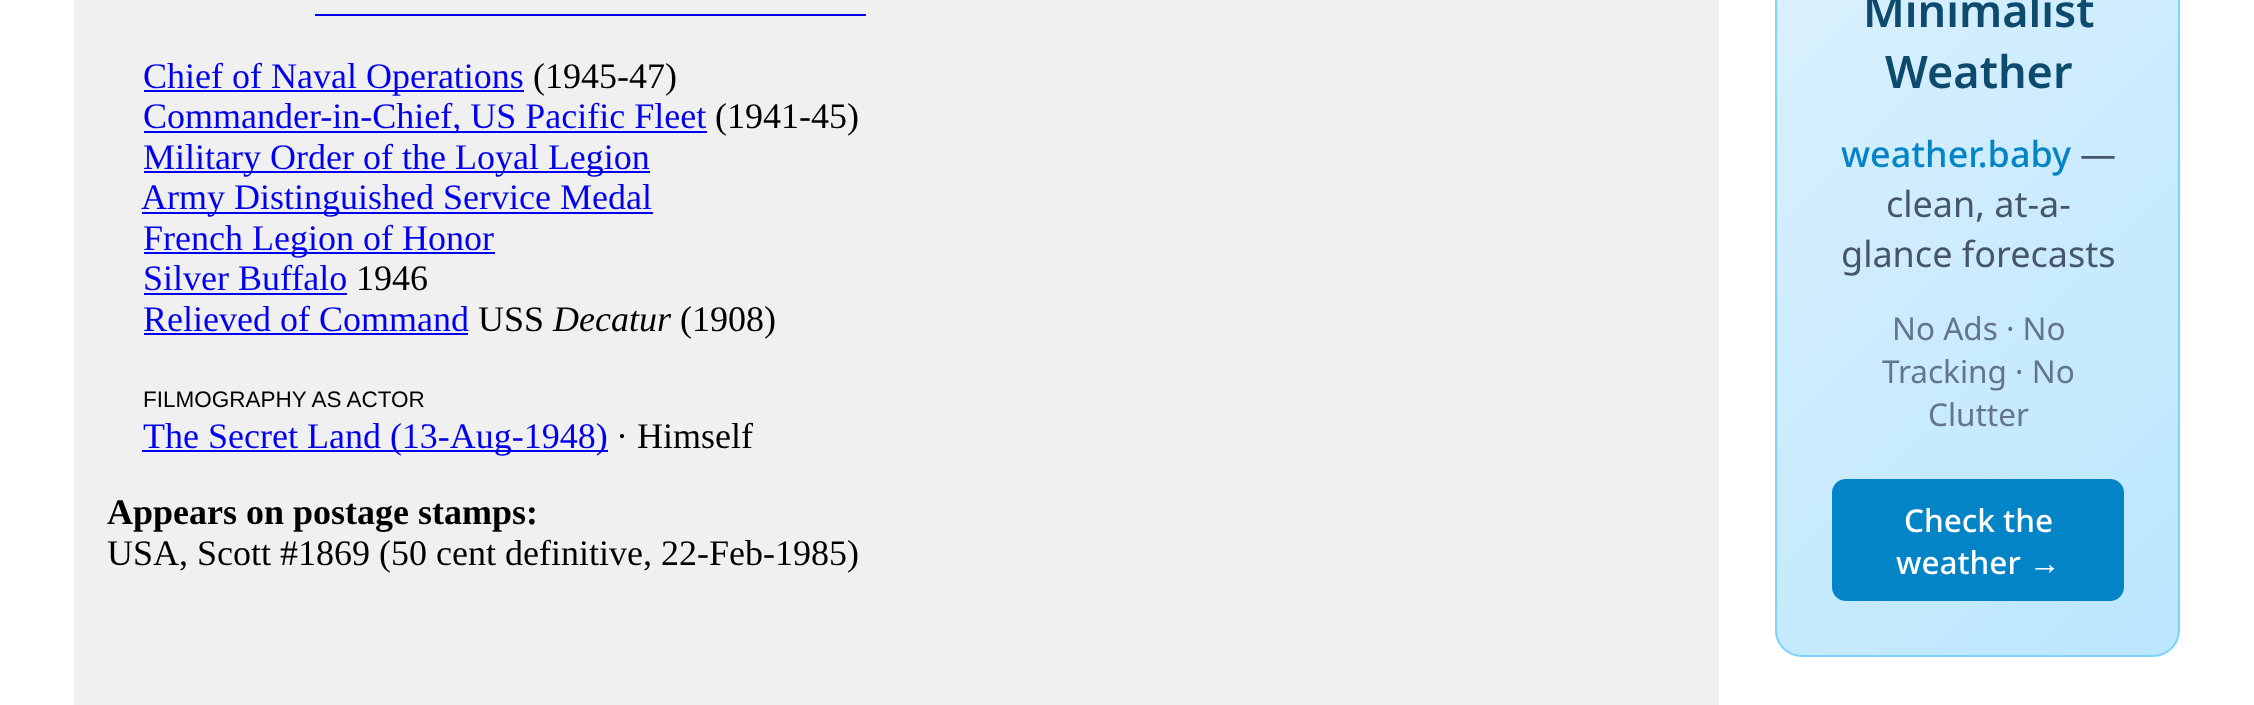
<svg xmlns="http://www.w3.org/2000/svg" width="2254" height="705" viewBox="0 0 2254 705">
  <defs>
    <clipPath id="clip1"><rect x="1775" y="-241" width="405" height="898" rx="27"/></clipPath>
    <linearGradient id="g1" gradientUnits="userSpaceOnUse" x1="1254" y1="-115" x2="1901" y2="532"><stop offset="0" stop-color="#e0f2fe"/><stop offset="1" stop-color="#bae6fd"/></linearGradient>
    <linearGradient id="g2" gradientUnits="userSpaceOnUse" x1="1654" y1="-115" x2="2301" y2="532"><stop offset="0" stop-color="#e0f2fe"/><stop offset="1" stop-color="#bae6fd"/></linearGradient>
  </defs>
  <rect width="100%" height="100%" fill="#fff"/>
  <path d="M74 0h1645v705H74z" fill="#f0f0f0"/>
  <path d="M315 14h551v2H315z" fill="#00e"/>
  <path d="M144 90h380v2H144z" fill="#00e"/>
  <path d="M144 131h563v2H144z" fill="#00e"/>
  <path d="M144 171h506v2H144z" fill="#00e"/>
  <path d="M142 212h511v2H142z" fill="#00e"/>
  <path d="M144 252h351v2H144z" fill="#00e"/>
  <path d="M144 293h203v2H144z" fill="#00e"/>
  <path d="M144 333h324v2H144z" fill="#00e"/>
  <path d="M142 450h466v2H142z" fill="#00e"/>
  <g clip-path="url(#clip1)">
    <path d="M1775 0h3v643H1775z" fill="url(#g1)"/>
    <path d="M1778 0h400v655H1778z" fill="url(#g2)"/>
  </g>
  <rect x="1776" y="-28" width="403" height="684" rx="26" fill="none" stroke="#7dd3fc" stroke-width="2"/>
  <rect x="1832" y="479" width="292" height="122" rx="14" fill="#0284c7"/>
  <text x="143" y="88" font-family="Liberation Serif" font-size="36" fill="#00e">Chief of Naval Operations</text>
  <text x="533" y="88" font-family="Liberation Serif" font-size="36" fill="#000">(1945-47)</text>
  <text x="143" y="128" font-family="Liberation Serif" font-size="36" fill="#00e">Commander-in-Chief, US Pacific Fleet</text>
  <text x="715" y="128" font-family="Liberation Serif" font-size="36" fill="#000">(1941-45)</text>
  <g font-family="Liberation Serif" font-size="36" fill="#00e">
    <text x="143" y="169">Military Order of the Loyal Legion</text>
    <text x="141" y="209">Army Distinguished Service Medal</text>
    <text x="143" y="250">French Legion of Honor</text>
    <text x="143" y="290">Silver Buffalo</text>
  </g>
  <text x="356" y="290" font-family="Liberation Serif" font-size="36" fill="#000">1946</text>
  <text x="143" y="331" font-family="Liberation Serif" font-size="36" fill="#00e">Relieved of Command</text>
  <text x="478" y="331" font-family="Liberation Serif" font-size="36" fill="#000">USS</text>
  <text x="553" y="331" font-family="Liberation Serif" font-size="36" font-style="italic" fill="#000">Decatur</text>
  <text x="680" y="331" font-family="Liberation Serif" font-size="36" fill="#000">(1908)</text>
  <text x="143" y="407" font-family="Liberation Sans" font-size="22.5" fill="#000">FILMOGRAPHY AS ACTOR</text>
  <text x="143" y="448" font-family="Liberation Serif" font-size="36" fill="#00e">The Secret Land (13-Aug-1948)</text>
  <text x="616" y="448" font-family="Liberation Serif" font-size="36" fill="#000">· Himself</text>
  <text x="107" y="524" font-family="Liberation Serif" font-size="36" font-weight="bold" fill="#000">Appears on postage stamps:</text>
  <text x="107" y="565" font-family="Liberation Serif" font-size="36" fill="#000">USA, Scott #1869 (50 cent definitive, 22-Feb-1985)</text>
  <g font-family="Noto Sans" font-size="45" font-weight="600" fill="#0c4a6e">
    <text x="1863" y="27">Minimalist</text>
    <text x="1885" y="88">Weather</text>
  </g>
  <text x="1841" y="167" font-family="Noto Sans" font-size="36" font-weight="500" fill="#0284c7">weather.baby</text>
  <g font-family="Noto Sans" font-size="36" fill="#475569">
    <text x="2080" y="167">—</text>
    <text x="1886" y="217">clean, at-a-</text>
    <text x="1841" y="267">glance forecasts</text>
  </g>
  <g font-family="Noto Sans" font-size="31.5" fill="#64748b">
    <text x="1892" y="340">No Ads · No</text>
    <text x="1882" y="383">Tracking · No</text>
    <text x="1928" y="426">Clutter</text>
  </g>
  <g font-family="Noto Sans" font-size="31.5" font-weight="500" fill="#fff">
    <text x="1904" y="532">Check the</text>
    <text x="1896" y="574">weather</text>
  </g>
  <text x="2029" y="574" font-family="Liberation Sans" font-size="31.5" fill="#fff">→</text>
</svg>
